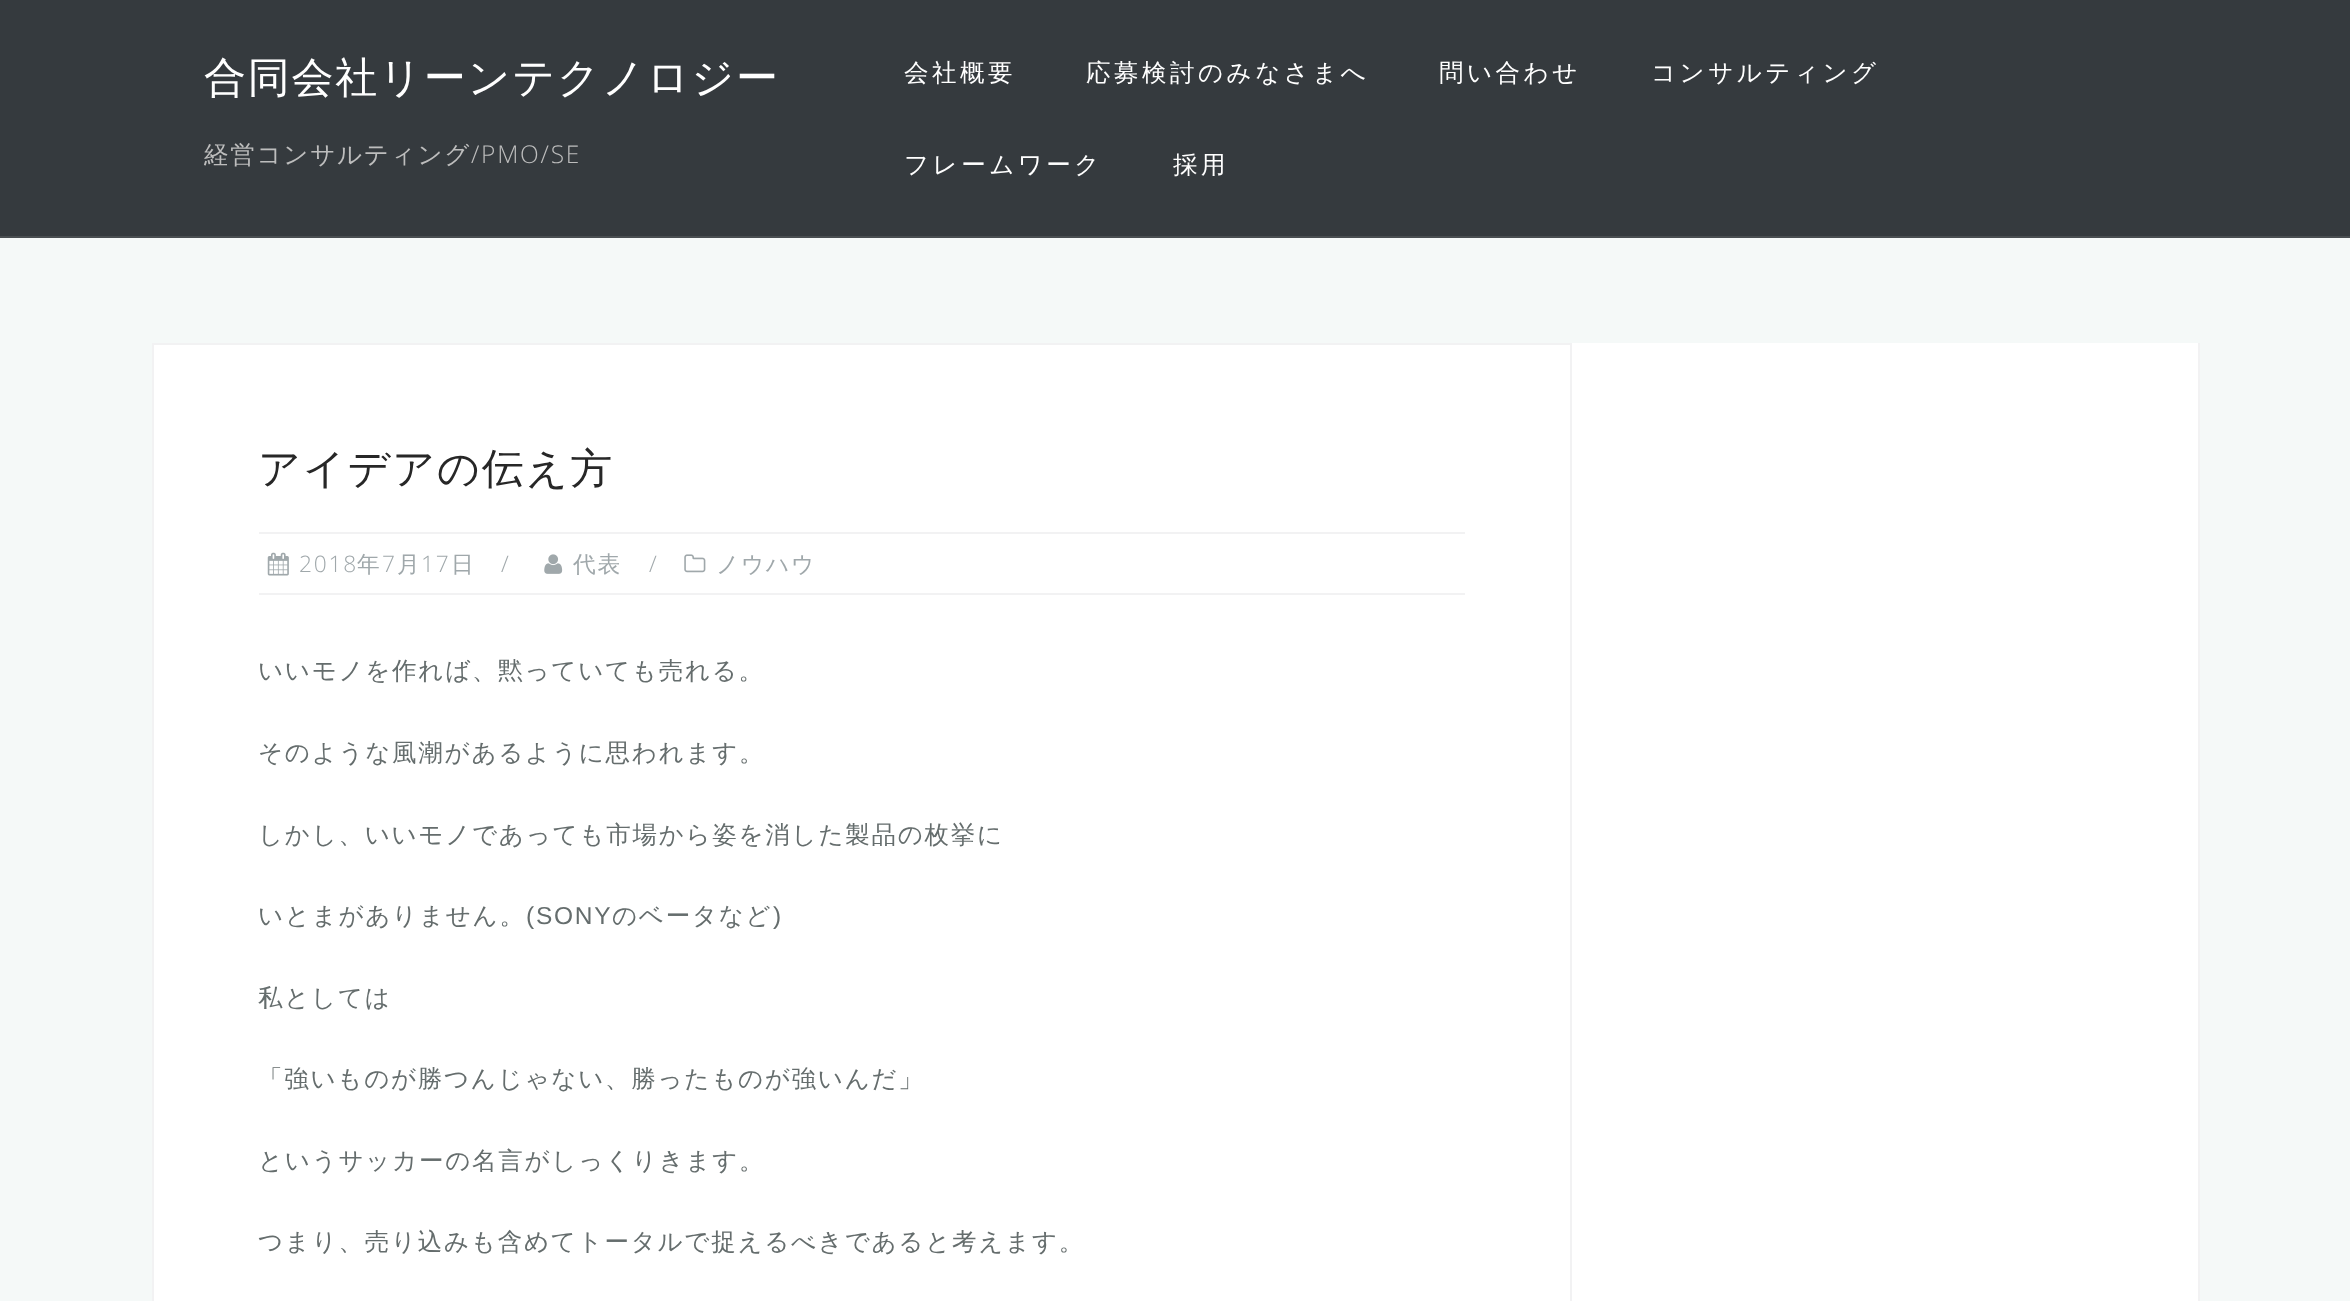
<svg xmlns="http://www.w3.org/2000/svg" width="2350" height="1301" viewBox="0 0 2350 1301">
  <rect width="100%" height="100%" fill="#f5f9f8"/>
  <path d="M0 0h2350v236H0z" fill="#353a3e"/>
  <path d="M0 236h2350v2H0z" fill="#494e51"/>
  <path d="M1572 343h626v958H1572z" fill="#fff"/>
  <path d="M2198 343h2v958H2198z" fill="#f2f2f3"/>
  <path d="M153 344h1418v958H153z" fill="#fff" stroke="#f2f2f3" stroke-width="2"/>
  <path d="M259 532h1206v2H259z" fill="#f2f2f3"/>
  <path d="M259 593h1206v2H259z" fill="#f2f2f3"/>
  <image x="267" y="552" width="22" height="24" href="img/1.png"/>
  <image x="544" y="554" width="19" height="20" href="img/2.png"/>
  <image x="684" y="554" width="22" height="19" href="img/3.png"/>
  <text x="204" y="92" font-family="WenQuanYi Zen Hei" font-size="42" font-weight="500" letter-spacing="1.75" fill="#fff">合同会社リーンテクノロジー</text>
  <text x="204" y="163" font-family="WenQuanYi Zen Hei" font-size="24.5" font-weight="500" letter-spacing="1.75" fill="#bdbdbd">経営コンサルティング</text>
  <text x="471" y="163" font-family="Open Sans" font-size="24.5" font-weight="300" letter-spacing="1.75" fill="#bdbdbd">/PMO/SE</text>
  <g font-family="WenQuanYi Zen Hei" font-size="24.5" font-weight="500" letter-spacing="3.5" fill="#fff">
    <text x="904" y="81">会社概要</text>
    <text x="1086" y="81">応募検討のみなさまへ</text>
    <text x="1439" y="81">問い合わせ</text>
    <text x="1651" y="81">コンサルティング</text>
    <text x="904" y="173">フレームワーク</text>
    <text x="1173" y="173">採用</text>
  </g>
  <text x="258" y="483" font-family="WenQuanYi Zen Hei" font-size="42" font-weight="500" letter-spacing="1.75" fill="#272727">アイデアの伝え方</text>
  <text x="299" y="572" font-family="Open Sans" font-size="22.75" font-weight="300" letter-spacing="1.75" fill="#a0a8ab">2018</text>
  <text x="357" y="572" font-family="WenQuanYi Zen Hei" font-size="22.75" font-weight="500" letter-spacing="1.75" fill="#a0a8ab">年</text>
  <text x="382" y="572" font-family="Open Sans" font-size="22.75" font-weight="300" letter-spacing="1.75" fill="#a0a8ab">7</text>
  <text x="397" y="572" font-family="WenQuanYi Zen Hei" font-size="22.75" font-weight="500" letter-spacing="1.75" fill="#a0a8ab">月</text>
  <text x="421" y="572" font-family="Open Sans" font-size="22.75" font-weight="300" letter-spacing="1.75" fill="#a0a8ab">17</text>
  <text x="451" y="572" font-family="WenQuanYi Zen Hei" font-size="22.75" font-weight="500" letter-spacing="1.75" fill="#a0a8ab">日</text>
  <text x="501" y="572" font-family="Open Sans" font-size="22.75" font-weight="300" letter-spacing="1.75" fill="#a0a8ab">/</text>
  <text x="573" y="572" font-family="WenQuanYi Zen Hei" font-size="22.75" font-weight="500" letter-spacing="1.75" fill="#a0a8ab">代表</text>
  <text x="649" y="572" font-family="Open Sans" font-size="22.75" font-weight="300" letter-spacing="1.75" fill="#a0a8ab">/</text>
  <text x="716" y="572" font-family="WenQuanYi Zen Hei" font-size="22.75" font-weight="500" letter-spacing="1.75" fill="#a0a8ab">ノウハウ</text>
  <g font-family="WenQuanYi Zen Hei" font-size="24.5" font-weight="500" letter-spacing="1.75" fill="#656d6d">
    <text x="258" y="679">いいモノを作れば、黙っていても売れる。</text>
    <text x="258" y="761">そのような風潮があるように思われます。</text>
    <text x="258" y="843">しかし、いいモノであっても市場から姿を消した製品の枚挙に</text>
    <text x="258" y="924">いとまがありません。</text>
  </g>
  <text x="526" y="924" font-family="Liberation Sans" font-size="24.5" letter-spacing="1.75" fill="#656d6d">(SONY</text>
  <text x="612" y="924" font-family="WenQuanYi Zen Hei" font-size="24.5" font-weight="500" letter-spacing="1.75" fill="#656d6d">のベータなど</text>
  <text x="773" y="924" font-family="Liberation Sans" font-size="24.5" letter-spacing="1.75" fill="#656d6d">)</text>
  <g font-family="WenQuanYi Zen Hei" font-size="24.5" font-weight="500" letter-spacing="1.75" fill="#656d6d">
    <text x="258" y="1006">私としては</text>
    <text x="258" y="1087">「強いものが勝つんじゃない、勝ったものが強いんだ」</text>
    <text x="258" y="1169">というサッカーの名言がしっくりきます。</text>
    <text x="258" y="1250">つまり、売り込みも含めてトータルで捉えるべきであると考えます。</text>
  </g>
</svg>
